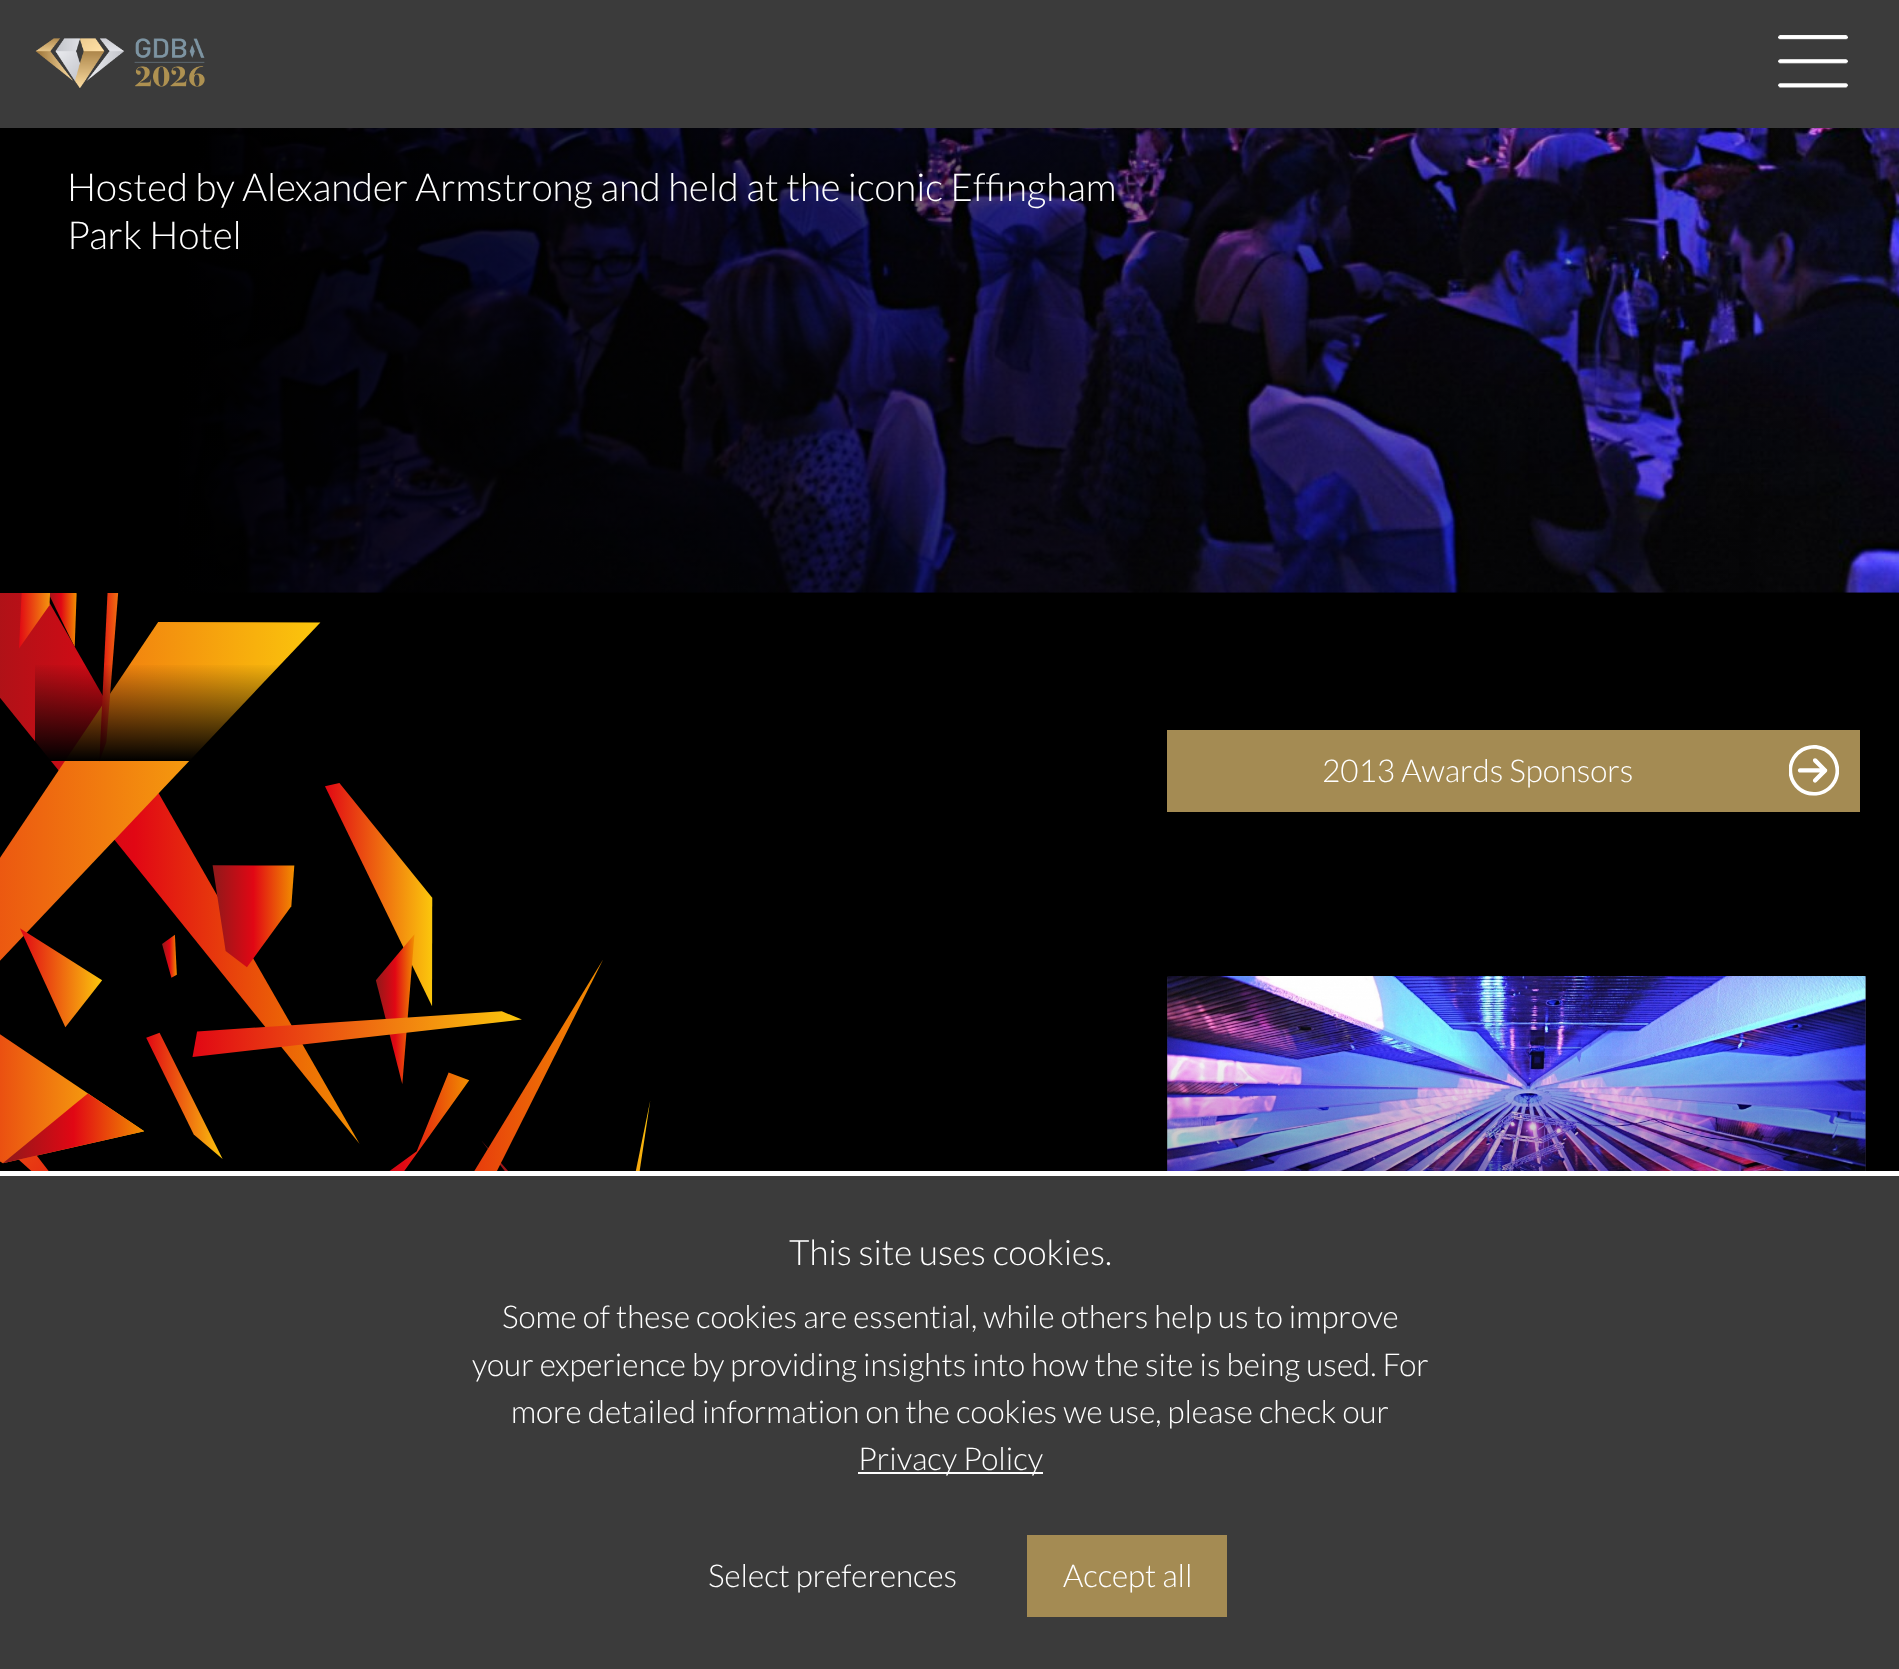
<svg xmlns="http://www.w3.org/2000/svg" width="1899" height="1669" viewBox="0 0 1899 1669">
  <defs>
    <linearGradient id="g1" gradientUnits="userSpaceOnUse" x1="-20" y1="105" x2="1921" y2="207"><stop offset="0" stop-color="#000"/><stop offset="0.11" stop-color="#000"/><stop offset="1" stop-color="#000" stop-opacity="0"/></linearGradient>
    <linearGradient id="g2" gradientUnits="userSpaceOnUse" x1="544" y1="663" x2="544" y2="761"><stop offset="0" stop-color="#000" stop-opacity="0"/><stop offset="1" stop-color="#000"/></linearGradient>
    <linearGradient id="g3" gradientUnits="userSpaceOnUse" x1="1516" y1="1047" x2="1516" y2="1484"><stop offset="0" stop-color="#000" stop-opacity="0"/><stop offset="1" stop-color="#000"/></linearGradient>
  </defs>
  <rect width="100%" height="100%" fill="#000"/>
  <path d="M0 0h1899v128H0z" fill="#3b3b3b"/>
  <image x="35" y="38" width="170" height="50" href="img/1.png"/>
  <image x="1778" y="35" width="70" height="53" href="img/2.png"/>
  <image x="0" y="593" width="651" height="578" href="img/3.png"/>
  <image x="179" y="128" width="1720" height="465" href="img/4.png"/>
  <path d="M179 128h1709v465H179z" fill="url(#g1)"/>
  <path d="M35 665h245v96H35z" fill="url(#g2)"/>
  <path d="M1167 730h693v82H1167z" fill="#a48b53"/>
  <image x="1789" y="745" width="50" height="51" href="img/5.png"/>
  <path d="M1167 977h699v194H1167z" fill="#322d3d"/>
  <image x="1167" y="976" width="699" height="195" href="img/6.png"/>
  <path d="M1167 1056h699v115H1167z" fill="url(#g3)"/>
  <path d="M0 1176h1899v493H0z" fill="#3b3b3b"/>
  <path d="M0 1171h1899v5H0z" fill="#fff"/>
  <path d="M858 1472h185v2H858z" fill="#fff"/>
  <path d="M1027 1535h200v82H1027z" fill="#a48b53"/>
  <g font-family="Lato" font-size="38.5" font-weight="300" fill="#fff">
    <text x="67" y="201">Hosted by Alexander Armstrong and held at the iconic Effingham</text>
    <text x="67" y="249">Park Hotel</text>
  </g>
  <text x="1322" y="782" font-family="Lato" font-size="31.5" font-weight="300" fill="#fff">2013 Awards Sponsors</text>
  <text x="789" y="1265" font-family="Lato" font-size="35" font-weight="300" fill="#fff">This site uses cookies.</text>
  <g font-family="Lato" font-size="31.5" font-weight="300" fill="#fff">
    <text x="502" y="1328">Some of these cookies are essential, while others help us to improve</text>
    <text x="472" y="1376">your experience by providing insights into how the site is being used. For</text>
    <text x="511" y="1423">more detailed information on the cookies we use, please check our</text>
    <text x="858" y="1470">Privacy Policy</text>
    <text x="708" y="1587">Select preferences</text>
    <text x="1063" y="1587">Accept all</text>
  </g>
</svg>
